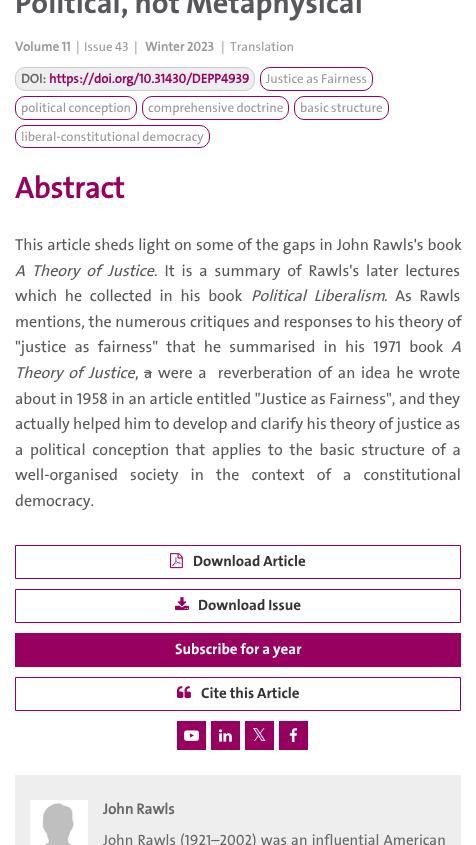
<svg xmlns="http://www.w3.org/2000/svg" width="476" height="845" viewBox="0 0 476 845">
  <style>*{font-kerning:none!important;font-variant-ligatures:none!important}</style>
  <rect width="100%" height="100%" fill="#fff"/>
  <rect x="15.5" y="67.5" width="239" height="23" rx="9.5" fill="#eee" stroke="#ccc"/>
  <rect x="260.5" y="67.5" width="112" height="23" rx="9.5" fill="none" stroke="#97005e"/>
  <rect x="15.5" y="96.5" width="121" height="23" rx="9.5" fill="none" stroke="#97005e"/>
  <rect x="142.5" y="96.5" width="146" height="23" rx="9.5" fill="none" stroke="#97005e"/>
  <rect x="294.5" y="96.5" width="94" height="23" rx="9.5" fill="none" stroke="#97005e"/>
  <rect x="15.5" y="125.5" width="194" height="22" rx="9.5" fill="none" stroke="#97005e"/>
  <path d="M15.5 545.5h445v33H15.5z" fill="none" stroke="#97005e"/>
  <image x="170" y="553" width="13" height="16" href="img/1.png"/>
  <path d="M15.5 589.5h445v33H15.5z" fill="none" stroke="#97005e"/>
  <image x="175" y="597" width="14" height="13" href="img/2.png"/>
  <path d="M15 633h446v34H15z" fill="#97005e"/>
  <path d="M15.5 677.5h445v33H15.5z" fill="none" stroke="#97005e"/>
  <image x="177" y="686" width="14" height="12" href="img/3.png"/>
  <path d="M177 721h29v29H177z" fill="#97005e"/>
  <image x="184" y="730" width="15" height="11" href="img/4.png"/>
  <path d="M211 721h29v29H211z" fill="#97005e"/>
  <image x="219" y="729" width="13" height="13" href="img/5.png"/>
  <path d="M245 721h29v29H245z" fill="#97005e"/>
  <path d="M279 721h29v29H279z" fill="#97005e"/>
  <image x="289" y="728" width="9" height="15" href="img/6.png"/>
  <path d="M15 775h446v70H15z" fill="#eee"/>
  <image x="30" y="800" width="58" height="45" href="img/7.png"/>
  <text x="15" y="13" font-family="'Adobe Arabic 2'" font-size="30.4" font-weight="bold" fill="#58585c">Political, not Metaphysical</text>
  <text x="15" y="51" font-family="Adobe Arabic" font-size="13" font-weight="bold" fill="#999">Volume 11</text>
  <g font-family="Adobe Arabic" font-size="13" font-weight="500" fill="#999">
    <text x="76" y="51">|</text>
    <text x="84" y="51">Issue 43</text>
    <text x="134" y="51">|</text>
  </g>
  <text x="145" y="51" font-family="Adobe Arabic" font-size="13" font-weight="bold" fill="#999">Winter 2023</text>
  <g font-family="Adobe Arabic" font-size="13" font-weight="500" fill="#999">
    <text x="221" y="51">|</text>
    <text x="230" y="51">Translation</text>
  </g>
  <text x="21" y="83" font-family="Adobe Arabic" font-size="13" font-weight="bold" fill="#666">DOI:</text>
  <text x="49" y="83" font-family="Adobe Arabic" font-size="13" font-weight="bold" fill="#97005e">https://doi.org/10.31430/DEPP4939</text>
  <g font-family="Adobe Arabic" font-size="13" font-weight="500" fill="#999">
    <text x="266" y="83">Justice as Fairness</text>
    <text x="21" y="112">political conception</text>
    <text x="148" y="112">comprehensive doctrine</text>
    <text x="300" y="112">basic structure</text>
    <text x="21" y="141">liberal-constitutional democracy</text>
  </g>
  <text x="15" y="198" font-family="Adobe Arabic" font-size="30" font-weight="bold" fill="#97005e">Abstract</text>
  <text x="15" y="250" word-spacing="0.75" font-family="Adobe Arabic" font-size="16" font-weight="500" fill="#58585c">This article sheds light on some of the gaps in John Rawls's book</text>
  <text x="15" y="276" word-spacing="3.75" font-family="Adobe Arabic" font-size="16" font-weight="500" font-style="italic" fill="#58585c">A Theory of Justice</text>
  <g font-family="Adobe Arabic" font-size="16" font-weight="500" fill="#58585c">
    <text x="154" y="276" word-spacing="3.75">. It is a summary of Rawls's later lectures</text>
    <text x="15" y="301" word-spacing="4.5">which he collected in his book</text>
  </g>
  <text x="251" y="301" word-spacing="4.5" font-family="Adobe Arabic" font-size="16" font-weight="500" font-style="italic" fill="#58585c">Political Liberalism</text>
  <g font-family="Adobe Arabic" font-size="16" font-weight="500" fill="#58585c">
    <text x="384" y="301" word-spacing="4.5">. As Rawls</text>
    <text x="15" y="327" word-spacing="0.5">mentions, the numerous critiques and responses to his theory of</text>
    <text x="15" y="352" word-spacing="5">"justice as fairness" that he summarised in his 1971 book</text>
  </g>
  <g font-family="Adobe Arabic" font-size="16" font-weight="500" font-style="italic" fill="#58585c">
    <text x="451" y="352">A</text>
    <text x="15" y="378" word-spacing="2.5">Theory of Justice</text>
  </g>
  <g font-family="Adobe Arabic" font-size="16" font-weight="500" fill="#58585c">
    <text x="135" y="378">,</text>
    <text x="144" y="378">a</text>
  </g>
  <path d="M144 372h8v1H144z" fill="#58595b"/>
  <g font-family="Adobe Arabic" font-size="16" font-weight="500" fill="#58585c">
    <text x="158" y="378" word-spacing="2.5" xml:space="preserve">were a  reverberation of an idea he wrote</text>
    <text x="15" y="404" word-spacing="0.5">about in 1958 in an article entitled "Justice as Fairness", and they</text>
    <text x="15" y="429" word-spacing="0.25">actually helped him to develop and clarify his theory of justice as</text>
    <text x="15" y="455" word-spacing="3.6">a political conception that applies to the basic structure of a</text>
    <text x="15" y="480" word-spacing="9">well-organised society in the context of a constitutional</text>
    <text x="15" y="506">democracy.</text>
  </g>
  <g font-family="'Adobe Arabic 2'" font-size="15" font-weight="bold" fill="#333">
    <text x="193" y="566">Download Article</text>
    <text x="198" y="610">Download Issue</text>
  </g>
  <text x="175" y="654" font-family="'Adobe Arabic 2'" font-size="15" font-weight="bold" fill="#fff">Subscribe for a year</text>
  <text x="201" y="698" font-family="'Adobe Arabic 2'" font-size="15" font-weight="bold" fill="#333">Cite this Article</text>
  <text x="252" y="741" font-family="DejaVu Sans" font-size="18" fill="#fff">𝕏</text>
  <text x="103" y="814" font-family="Adobe Arabic" font-size="15" font-weight="bold" fill="#666">John Rawls</text>
  <text x="103" y="845" word-spacing="1.25" font-family="Adobe Arabic" font-size="15" font-weight="500" fill="#666">John Rawls (1921–2002) was an influential American</text>
</svg>
